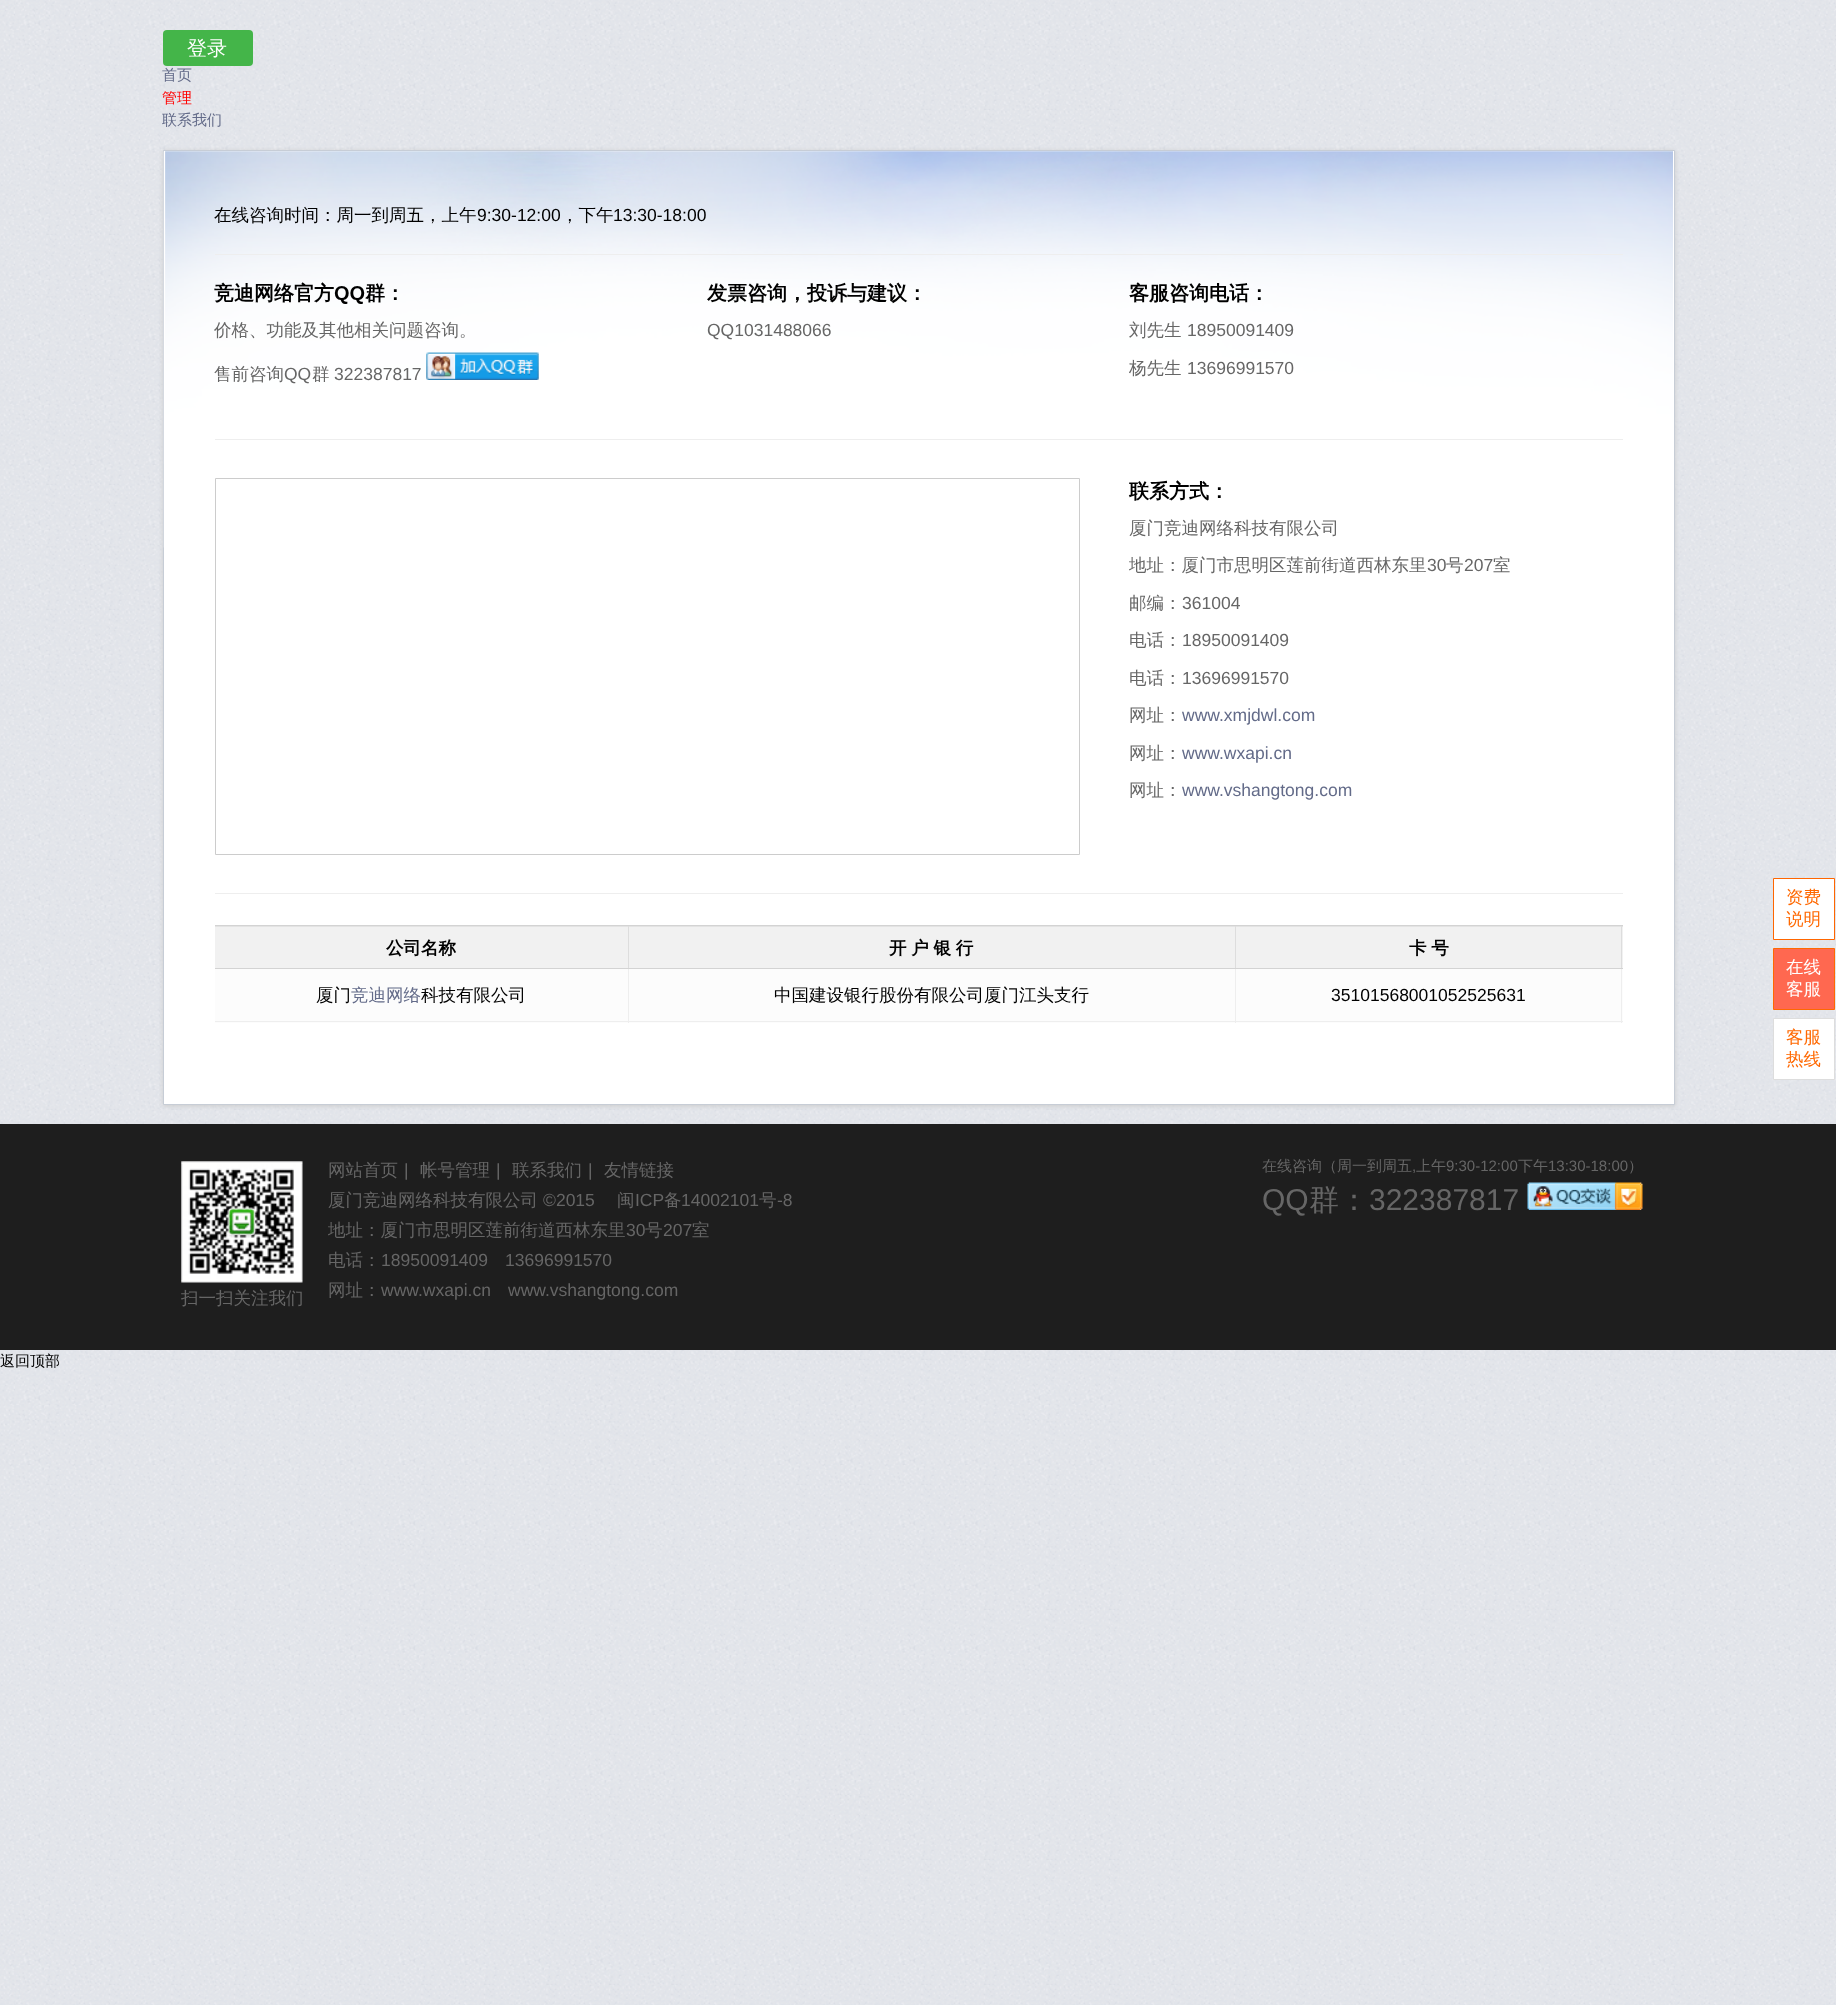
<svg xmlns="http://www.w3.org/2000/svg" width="1836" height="2005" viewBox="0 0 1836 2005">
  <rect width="100%" height="100%" fill="#fff"/>
  <image x="0" y="0" width="1836" height="2005" href="img/1.png"/>
  <rect x="163" y="30" width="90" height="36" rx="4" fill="#44b549"/>
  <path d="M163 151h1512v955H163z" fill="#ccc" filter="blur(2px)"/>
  <path d="M163.5 150.5h1511v954H163.5z" fill="none" stroke="#c7cdd6"/>
  <path d="M165 151h1509v953H165z" fill="#fff"/>
  <image x="163" y="151" width="1510" height="397" href="img/2.png"/>
  <path d="M164 151h1v953H164z" fill="#fff"/>
  <path d="M215 254h1408v1H215z" fill="#eee"/>
  <path d="M215 439h1408v1H215z" fill="#eee"/>
  <image x="426" y="352" width="113" height="28" href="img/3.png"/>
  <path d="M215 893h1408v1H215z" fill="#eee"/>
  <path d="M215.5 478.5h864v376H215.5z" fill="none" stroke="#ccc"/>
  <path d="M215 925h1408v1H215z" fill="#d3d3d3"/>
  <path d="M215 927h413v41H215z" fill="#f1f1f1"/>
  <path d="M215 926h1408v1H215z" fill="#e3e3e3"/>
  <path d="M628 926h1v43H628z" fill="#ddd"/>
  <path d="M215 968h414v1H215z" fill="#d3d3d3"/>
  <path d="M629 927h606v41H629z" fill="#f1f1f1"/>
  <path d="M1235 926h1v43H1235z" fill="#ddd"/>
  <path d="M629 968h607v1H629z" fill="#d3d3d3"/>
  <path d="M1236 927h387v41H1236z" fill="#f1f1f1"/>
  <path d="M1621 926h1v43H1621z" fill="#ddd"/>
  <path d="M1236 968h387v1H1236z" fill="#d3d3d3"/>
  <path d="M215 969h1408v54H215z" fill="#fcfcfc"/>
  <path d="M628 969h1v54H628z" fill="#eee"/>
  <path d="M215 1021h414v1H215z" fill="#eee"/>
  <path d="M1235 969h1v54H1235z" fill="#eee"/>
  <path d="M629 1021h607v1H629z" fill="#eee"/>
  <path d="M1621 969h1v54H1621z" fill="#eee"/>
  <path d="M1236 1021h387v1H1236z" fill="#eee"/>
  <path d="M1773.5 878.5h61v61H1773.5z" fill="#fff" stroke="#f60"/>
  <path d="M1773.5 948.5h61v61H1773.5z" fill="#ff6850" stroke="#ff6800"/>
  <path d="M1773.5 1018.5h61v61H1773.5z" fill="#fff" stroke="#ddd"/>
  <path d="M0 1124h1836v226H0z" fill="#1e1e1e"/>
  <image x="181" y="1161" width="122" height="122" href="img/4.png"/>
  <image x="1527" y="1182" width="116" height="28" href="img/5.png"/>
  <text x="187" y="55" font-family="WenQuanYi Zen Hei" font-size="20" font-weight="500" fill="#fff">登录</text>
  <text x="162" y="80" font-family="WenQuanYi Zen Hei" font-size="15" font-weight="500" fill="#636b89">首页</text>
  <text x="162" y="103" font-family="WenQuanYi Zen Hei" font-size="15" font-weight="500" fill="#f00">管理</text>
  <text x="162" y="125" font-family="WenQuanYi Zen Hei" font-size="15" font-weight="500" fill="#636b89">联系我们</text>
  <text x="214" y="221" font-family="WenQuanYi Zen Hei" font-size="17.5" font-weight="500" fill="#000">在线咨询时间：周一到周五，上午</text>
  <text x="477" y="221" font-family="Liberation Sans" font-size="17.5" fill="#000">9:30-12:00</text>
  <text x="561" y="221" font-family="WenQuanYi Zen Hei" font-size="17.5" font-weight="500" fill="#000">，下午</text>
  <text x="613" y="221" font-family="Liberation Sans" font-size="17.5" fill="#000">13:30-18:00</text>
  <text x="214" y="300" font-family="WenQuanYi Zen Hei" font-size="20" font-weight="bold" fill="#000">竞迪网络官方</text>
  <text x="334" y="300" font-family="Liberation Sans" font-size="20" font-weight="bold" fill="#000">QQ</text>
  <text x="365" y="300" font-family="WenQuanYi Zen Hei" font-size="20" font-weight="bold" fill="#000">群：</text>
  <g font-family="WenQuanYi Zen Hei" font-size="17.5" font-weight="500" fill="#666">
    <text x="214" y="336">价格、功能及其他相关问题咨询。</text>
    <text x="214" y="380">售前咨询</text>
  </g>
  <text x="284" y="380" font-family="Liberation Sans" font-size="17.5" fill="#666">QQ</text>
  <text x="312" y="380" font-family="WenQuanYi Zen Hei" font-size="17.5" font-weight="500" fill="#666">群</text>
  <text x="334" y="380" font-family="Liberation Sans" font-size="17.5" fill="#666">322387817</text>
  <text x="707" y="300" font-family="WenQuanYi Zen Hei" font-size="20" font-weight="bold" fill="#000">发票咨询，投诉与建议：</text>
  <text x="707" y="336" font-family="Liberation Sans" font-size="17.5" fill="#666">QQ1031488066</text>
  <text x="1129" y="300" font-family="WenQuanYi Zen Hei" font-size="20" font-weight="bold" fill="#000">客服咨询电话：</text>
  <text x="1129" y="336" font-family="WenQuanYi Zen Hei" font-size="17.5" font-weight="500" fill="#666">刘先生</text>
  <text x="1187" y="336" font-family="Liberation Sans" font-size="17.5" fill="#666">18950091409</text>
  <text x="1129" y="374" font-family="WenQuanYi Zen Hei" font-size="17.5" font-weight="500" fill="#666">杨先生</text>
  <text x="1187" y="374" font-family="Liberation Sans" font-size="17.5" fill="#666">13696991570</text>
  <text x="1129" y="498" font-family="WenQuanYi Zen Hei" font-size="20" font-weight="bold" fill="#000">联系方式：</text>
  <g font-family="WenQuanYi Zen Hei" font-size="17.5" font-weight="500" fill="#666">
    <text x="1129" y="534">厦门竞迪网络科技有限公司</text>
    <text x="1129" y="571">地址：厦门市思明区莲前街道西林东里</text>
  </g>
  <text x="1427" y="571" font-family="Liberation Sans" font-size="17.5" fill="#666">30</text>
  <text x="1446" y="571" font-family="WenQuanYi Zen Hei" font-size="17.5" font-weight="500" fill="#666">号</text>
  <text x="1464" y="571" font-family="Liberation Sans" font-size="17.5" fill="#666">207</text>
  <g font-family="WenQuanYi Zen Hei" font-size="17.5" font-weight="500" fill="#666">
    <text x="1493" y="571">室</text>
    <text x="1129" y="609">邮编：</text>
  </g>
  <text x="1182" y="609" font-family="Liberation Sans" font-size="17.5" fill="#666">361004</text>
  <text x="1129" y="646" font-family="WenQuanYi Zen Hei" font-size="17.5" font-weight="500" fill="#666">电话：</text>
  <text x="1182" y="646" font-family="Liberation Sans" font-size="17.5" fill="#666">18950091409</text>
  <text x="1129" y="684" font-family="WenQuanYi Zen Hei" font-size="17.5" font-weight="500" fill="#666">电话：</text>
  <text x="1182" y="684" font-family="Liberation Sans" font-size="17.5" fill="#666">13696991570</text>
  <text x="1129" y="721" font-family="WenQuanYi Zen Hei" font-size="17.5" font-weight="500" fill="#666">网址：</text>
  <text x="1182" y="721" font-family="Liberation Sans" font-size="17.5" fill="#636b89">www.xmjdwl.com</text>
  <text x="1129" y="759" font-family="WenQuanYi Zen Hei" font-size="17.5" font-weight="500" fill="#666">网址：</text>
  <text x="1182" y="759" font-family="Liberation Sans" font-size="17.5" fill="#636b89">www.wxapi.cn</text>
  <text x="1129" y="796" font-family="WenQuanYi Zen Hei" font-size="17.5" font-weight="500" fill="#666">网址：</text>
  <text x="1182" y="796" font-family="Liberation Sans" font-size="17.5" fill="#636b89">www.vshangtong.com</text>
  <g font-family="WenQuanYi Zen Hei" font-size="17.5" font-weight="bold" fill="#000">
    <text x="386" y="954">公司名称</text>
    <text x="889" y="954" word-spacing="-0.5">开 户 银 行</text>
    <text x="1409" y="954" word-spacing="-0.5">卡 号</text>
  </g>
  <text x="316" y="1001" font-family="WenQuanYi Zen Hei" font-size="17.5" font-weight="500" fill="#000">厦门</text>
  <text x="351" y="1001" font-family="WenQuanYi Zen Hei" font-size="17.5" font-weight="500" fill="#636b89">竞迪网络</text>
  <g font-family="WenQuanYi Zen Hei" font-size="17.5" font-weight="500" fill="#000">
    <text x="421" y="1001">科技有限公司</text>
    <text x="774" y="1001">中国建设银行股份有限公司厦门江头支行</text>
  </g>
  <text x="1331" y="1001" font-family="Liberation Sans" font-size="17.5" fill="#000">35101568001052525631</text>
  <g font-family="WenQuanYi Zen Hei" font-size="17.5" font-weight="500" fill="#ff6800">
    <text x="1786" y="903">资费</text>
    <text x="1786" y="925">说明</text>
  </g>
  <g font-family="WenQuanYi Zen Hei" font-size="17.5" font-weight="500" fill="#fff">
    <text x="1786" y="973">在线</text>
    <text x="1786" y="995">客服</text>
  </g>
  <g font-family="WenQuanYi Zen Hei" font-size="17.5" font-weight="500" fill="#ff6800">
    <text x="1786" y="1043">客服</text>
    <text x="1786" y="1065">热线</text>
  </g>
  <text x="328" y="1176" font-family="WenQuanYi Zen Hei" font-size="17.5" font-weight="500" fill="#666">网站首页</text>
  <text x="404" y="1176" font-family="Liberation Sans" font-size="17.5" fill="#666">|</text>
  <text x="420" y="1176" font-family="WenQuanYi Zen Hei" font-size="17.5" font-weight="500" fill="#666">帐号管理</text>
  <text x="496" y="1176" font-family="Liberation Sans" font-size="17.5" fill="#666">|</text>
  <text x="512" y="1176" font-family="WenQuanYi Zen Hei" font-size="17.5" font-weight="500" fill="#666">联系我们</text>
  <text x="588" y="1176" font-family="Liberation Sans" font-size="17.5" fill="#666">|</text>
  <g font-family="WenQuanYi Zen Hei" font-size="17.5" font-weight="500" fill="#666">
    <text x="604" y="1176">友情链接</text>
    <text x="328" y="1206">厦门竞迪网络科技有限公司</text>
  </g>
  <text x="543" y="1206" font-family="Liberation Sans" font-size="17.5" fill="#666">©2015</text>
  <text x="617" y="1206" font-family="WenQuanYi Zen Hei" font-size="17.5" font-weight="500" fill="#666">闽</text>
  <text x="635" y="1206" font-family="Liberation Sans" font-size="17.5" fill="#666">ICP</text>
  <text x="664" y="1206" font-family="WenQuanYi Zen Hei" font-size="17.5" font-weight="500" fill="#666">备</text>
  <text x="681" y="1206" font-family="Liberation Sans" font-size="17.5" fill="#666">14002101</text>
  <text x="759" y="1206" font-family="WenQuanYi Zen Hei" font-size="17.5" font-weight="500" fill="#666">号</text>
  <text x="777" y="1206" font-family="Liberation Sans" font-size="17.5" fill="#666">-8</text>
  <text x="328" y="1236" font-family="WenQuanYi Zen Hei" font-size="17.5" font-weight="500" fill="#666">地址：厦门市思明区莲前街道西林东里</text>
  <text x="626" y="1236" font-family="Liberation Sans" font-size="17.5" fill="#666">30</text>
  <text x="645" y="1236" font-family="WenQuanYi Zen Hei" font-size="17.5" font-weight="500" fill="#666">号</text>
  <text x="663" y="1236" font-family="Liberation Sans" font-size="17.5" fill="#666">207</text>
  <g font-family="WenQuanYi Zen Hei" font-size="17.5" font-weight="500" fill="#666">
    <text x="692" y="1236">室</text>
    <text x="328" y="1266">电话：</text>
  </g>
  <g font-family="Liberation Sans" font-size="17.5" fill="#666">
    <text x="381" y="1266">18950091409</text>
    <text x="505" y="1266">13696991570</text>
  </g>
  <g font-family="WenQuanYi Zen Hei" font-size="17.5" font-weight="500" fill="#666">
    <text x="181" y="1304">扫一扫关注我们</text>
    <text x="328" y="1296">网址：</text>
  </g>
  <g font-family="Liberation Sans" font-size="17.5" fill="#666">
    <text x="381" y="1296">www.wxapi.cn</text>
    <text x="508" y="1296">www.vshangtong.com</text>
  </g>
  <text x="1262" y="1171" font-family="WenQuanYi Zen Hei" font-size="15" font-weight="500" fill="#666">在线咨询（周一到周五</text>
  <text x="1412" y="1171" font-family="Liberation Sans" font-size="15" fill="#666">,</text>
  <text x="1416" y="1171" font-family="WenQuanYi Zen Hei" font-size="15" font-weight="500" fill="#666">上午</text>
  <text x="1446" y="1171" font-family="Liberation Sans" font-size="15" fill="#666">9:30-12:00</text>
  <text x="1518" y="1171" font-family="WenQuanYi Zen Hei" font-size="15" font-weight="500" fill="#666">下午</text>
  <text x="1548" y="1171" font-family="Liberation Sans" font-size="15" fill="#666">13:30-18:00</text>
  <text x="1628" y="1171" font-family="WenQuanYi Zen Hei" font-size="15" font-weight="500" fill="#666">）</text>
  <text x="1262" y="1210" font-family="Liberation Sans" font-size="30" fill="#666">QQ</text>
  <text x="1309" y="1210" font-family="WenQuanYi Zen Hei" font-size="30" font-weight="500" fill="#666">群：</text>
  <text x="1369" y="1210" font-family="Liberation Sans" font-size="30" fill="#666">322387817</text>
  <text x="0" y="1366" font-family="WenQuanYi Zen Hei" font-size="15" font-weight="500" fill="#000">返回顶部</text>
</svg>
